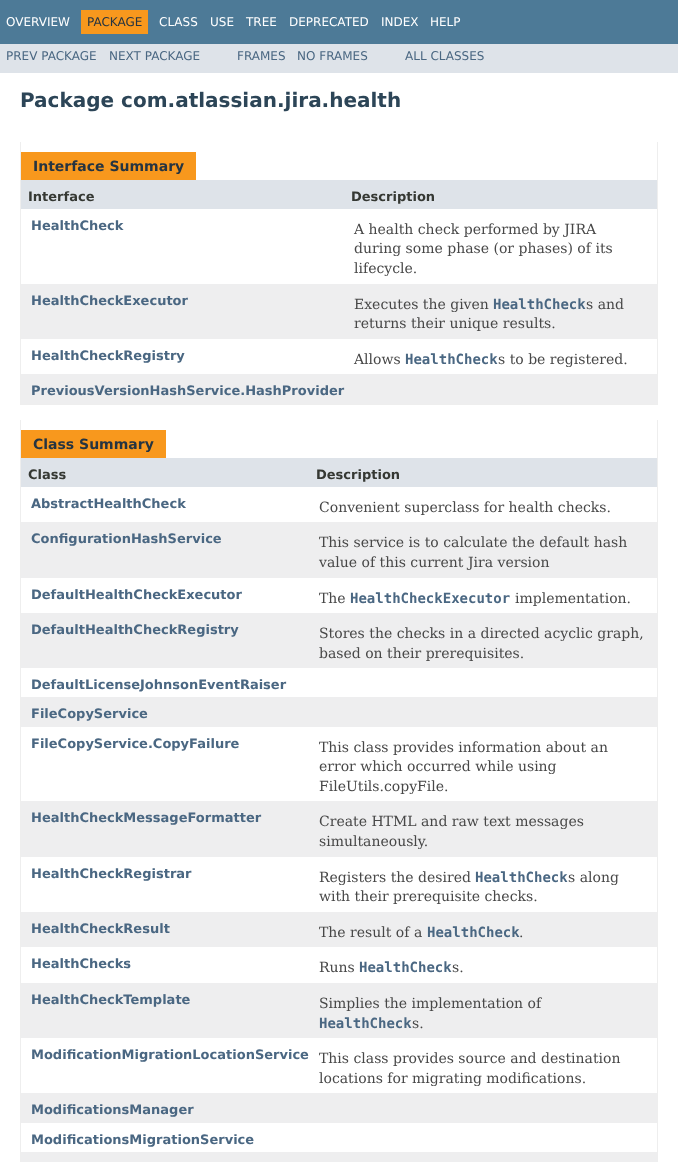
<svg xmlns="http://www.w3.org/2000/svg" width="678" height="1162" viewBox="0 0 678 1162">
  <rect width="100%" height="100%" fill="#fff"/>
  <path d="M0 0h678v44H0z" fill="#4d7a97"/>
  <path d="M81 10h67v24H81z" fill="#f8981d"/>
  <path d="M0 44h678v29H0z" fill="#dee3e9"/>
  <path d="M657 142h1v263H657z" fill="#eee"/>
  <path d="M20 404h638v1H20z" fill="#eee"/>
  <path d="M20 142h1v263H20z" fill="#eee"/>
  <path d="M21 152h175v28H21z" fill="#f8981d"/>
  <path d="M21 180h636v29H21z" fill="#dee3e9"/>
  <path d="M21 284h636v55H21z" fill="#eeeeef"/>
  <path d="M21 374h636v30H21z" fill="#eeeeef"/>
  <path d="M657 420h1v742H657z" fill="#eee"/>
  <path d="M20 420h1v742H20z" fill="#eee"/>
  <path d="M21 430h145v28H21z" fill="#f8981d"/>
  <path d="M21 458h636v29H21z" fill="#dee3e9"/>
  <path d="M21 522h636v56H21z" fill="#eeeeef"/>
  <path d="M21 613h636v55H21z" fill="#eeeeef"/>
  <path d="M21 697h636v30H21z" fill="#eeeeef"/>
  <path d="M21 801h636v56H21z" fill="#eeeeef"/>
  <path d="M21 912h636v35H21z" fill="#eeeeef"/>
  <path d="M21 983h636v55H21z" fill="#eeeeef"/>
  <path d="M21 1093h636v30H21z" fill="#eeeeef"/>
  <path d="M21 1152h636v10H21z" fill="#eeeeef"/>
  <text x="6" y="26" font-family="DejaVu Sans" font-size="12" fill="#fff">OVERVIEW</text>
  <text x="87" y="26" font-family="DejaVu Sans" font-size="12" fill="#253441">PACKAGE</text>
  <g font-family="DejaVu Sans" font-size="12" fill="#fff">
    <text x="159" y="26">CLASS</text>
    <text x="210" y="26">USE</text>
    <text x="246" y="26">TREE</text>
    <text x="289" y="26">DEPRECATED</text>
    <text x="381" y="26">INDEX</text>
    <text x="430" y="26">HELP</text>
  </g>
  <g font-family="DejaVu Sans" font-size="12" fill="#4a6782">
    <text x="6" y="60">PREV PACKAGE</text>
    <text x="109" y="60">NEXT PACKAGE</text>
    <text x="237" y="60">FRAMES</text>
    <text x="297" y="60">NO FRAMES</text>
    <text x="405" y="60">ALL CLASSES</text>
  </g>
  <text x="20" y="107" font-family="DejaVu Sans" font-size="20" font-weight="bold" fill="#2c4557">Package com.atlassian.jira.health</text>
  <text x="33" y="171" font-family="DejaVu Sans" font-size="14" font-weight="bold" fill="#253441">Interface Summary</text>
  <g font-family="DejaVu Sans" font-size="13" font-weight="bold" fill="#353833">
    <text x="28" y="201">Interface</text>
    <text x="351" y="201">Description</text>
  </g>
  <text x="31" y="230" font-family="DejaVu Sans" font-size="13" font-weight="bold" fill="#4a6782">HealthCheck</text>
  <g font-family="DejaVu Serif" font-size="14" fill="#474747">
    <text x="354" y="234">A health check performed by JIRA</text>
    <text x="354" y="253">during some phase (or phases) of its</text>
    <text x="354" y="273">lifecycle.</text>
  </g>
  <text x="31" y="305" font-family="DejaVu Sans" font-size="13" font-weight="bold" fill="#4a6782">HealthCheckExecutor</text>
  <text x="354" y="309" font-family="DejaVu Serif" font-size="14" fill="#474747">Executes the given</text>
  <text x="493" y="309" font-family="DejaVu Sans Mono" font-size="14" font-weight="bold" fill="#4a6782">HealthCheck</text>
  <g font-family="DejaVu Serif" font-size="14" fill="#474747">
    <text x="586" y="309">s and</text>
    <text x="354" y="328">returns their unique results.</text>
  </g>
  <text x="31" y="360" font-family="DejaVu Sans" font-size="13" font-weight="bold" fill="#4a6782">HealthCheckRegistry</text>
  <text x="354" y="364" font-family="DejaVu Serif" font-size="14" fill="#474747">Allows</text>
  <text x="405" y="364" font-family="DejaVu Sans Mono" font-size="14" font-weight="bold" fill="#4a6782">HealthCheck</text>
  <text x="498" y="364" font-family="DejaVu Serif" font-size="14" fill="#474747">s to be registered.</text>
  <text x="31" y="395" font-family="DejaVu Sans" font-size="13" font-weight="bold" fill="#4a6782">PreviousVersionHashService.HashProvider</text>
  <text x="33" y="449" font-family="DejaVu Sans" font-size="14" font-weight="bold" fill="#253441">Class Summary</text>
  <g font-family="DejaVu Sans" font-size="13" font-weight="bold" fill="#353833">
    <text x="28" y="479">Class</text>
    <text x="316" y="479">Description</text>
  </g>
  <text x="31" y="508" font-family="DejaVu Sans" font-size="13" font-weight="bold" fill="#4a6782">AbstractHealthCheck</text>
  <text x="319" y="512" font-family="DejaVu Serif" font-size="14" fill="#474747">Convenient superclass for health checks.</text>
  <text x="31" y="543" font-family="DejaVu Sans" font-size="13" font-weight="bold" fill="#4a6782">ConfigurationHashService</text>
  <g font-family="DejaVu Serif" font-size="14" fill="#474747">
    <text x="319" y="547">This service is to calculate the default hash</text>
    <text x="319" y="567">value of this current Jira version</text>
  </g>
  <text x="31" y="599" font-family="DejaVu Sans" font-size="13" font-weight="bold" fill="#4a6782">DefaultHealthCheckExecutor</text>
  <text x="319" y="603" font-family="DejaVu Serif" font-size="14" fill="#474747">The</text>
  <text x="350" y="603" font-family="DejaVu Sans Mono" font-size="14" font-weight="bold" fill="#4a6782">HealthCheckExecutor</text>
  <text x="515" y="603" font-family="DejaVu Serif" font-size="14" fill="#474747">implementation.</text>
  <text x="31" y="634" font-family="DejaVu Sans" font-size="13" font-weight="bold" fill="#4a6782">DefaultHealthCheckRegistry</text>
  <g font-family="DejaVu Serif" font-size="14" fill="#474747">
    <text x="319" y="638">Stores the checks in a directed acyclic graph,</text>
    <text x="319" y="658">based on their prerequisites.</text>
  </g>
  <g font-family="DejaVu Sans" font-size="13" font-weight="bold" fill="#4a6782">
    <text x="31" y="689">DefaultLicenseJohnsonEventRaiser</text>
    <text x="31" y="718">FileCopyService</text>
    <text x="31" y="748">FileCopyService.CopyFailure</text>
  </g>
  <g font-family="DejaVu Serif" font-size="14" fill="#474747">
    <text x="319" y="752">This class provides information about an</text>
    <text x="319" y="771">error which occurred while using</text>
    <text x="319" y="791">FileUtils.copyFile.</text>
  </g>
  <text x="31" y="822" font-family="DejaVu Sans" font-size="13" font-weight="bold" fill="#4a6782">HealthCheckMessageFormatter</text>
  <g font-family="DejaVu Serif" font-size="14" fill="#474747">
    <text x="319" y="826">Create HTML and raw text messages</text>
    <text x="319" y="846">simultaneously.</text>
  </g>
  <text x="31" y="878" font-family="DejaVu Sans" font-size="13" font-weight="bold" fill="#4a6782">HealthCheckRegistrar</text>
  <text x="319" y="882" font-family="DejaVu Serif" font-size="14" fill="#474747">Registers the desired</text>
  <text x="475" y="882" font-family="DejaVu Sans Mono" font-size="14" font-weight="bold" fill="#4a6782">HealthCheck</text>
  <g font-family="DejaVu Serif" font-size="14" fill="#474747">
    <text x="568" y="882">s along</text>
    <text x="319" y="901">with their prerequisite checks.</text>
  </g>
  <text x="31" y="933" font-family="DejaVu Sans" font-size="13" font-weight="bold" fill="#4a6782">HealthCheckResult</text>
  <text x="319" y="937" font-family="DejaVu Serif" font-size="14" fill="#474747">The result of a</text>
  <text x="427" y="937" font-family="DejaVu Sans Mono" font-size="14" font-weight="bold" fill="#4a6782">HealthCheck</text>
  <text x="519" y="937" font-family="DejaVu Serif" font-size="14" fill="#474747">.</text>
  <text x="31" y="968" font-family="DejaVu Sans" font-size="13" font-weight="bold" fill="#4a6782">HealthChecks</text>
  <text x="319" y="972" font-family="DejaVu Serif" font-size="14" fill="#474747">Runs</text>
  <text x="359" y="972" font-family="DejaVu Sans Mono" font-size="14" font-weight="bold" fill="#4a6782">HealthCheck</text>
  <text x="452" y="972" font-family="DejaVu Serif" font-size="14" fill="#474747">s.</text>
  <text x="31" y="1004" font-family="DejaVu Sans" font-size="13" font-weight="bold" fill="#4a6782">HealthCheckTemplate</text>
  <text x="319" y="1008" font-family="DejaVu Serif" font-size="14" fill="#474747">Simplies the implementation of</text>
  <text x="319" y="1028" font-family="DejaVu Sans Mono" font-size="14" font-weight="bold" fill="#4a6782">HealthCheck</text>
  <text x="412" y="1028" font-family="DejaVu Serif" font-size="14" fill="#474747">s.</text>
  <text x="31" y="1059" font-family="DejaVu Sans" font-size="13" font-weight="bold" fill="#4a6782">ModificationMigrationLocationService</text>
  <g font-family="DejaVu Serif" font-size="14" fill="#474747">
    <text x="319" y="1063">This class provides source and destination</text>
    <text x="319" y="1083">locations for migrating modifications.</text>
  </g>
  <g font-family="DejaVu Sans" font-size="13" font-weight="bold" fill="#4a6782">
    <text x="31" y="1114">ModificationsManager</text>
    <text x="31" y="1144">ModificationsMigrationService</text>
  </g>
</svg>
